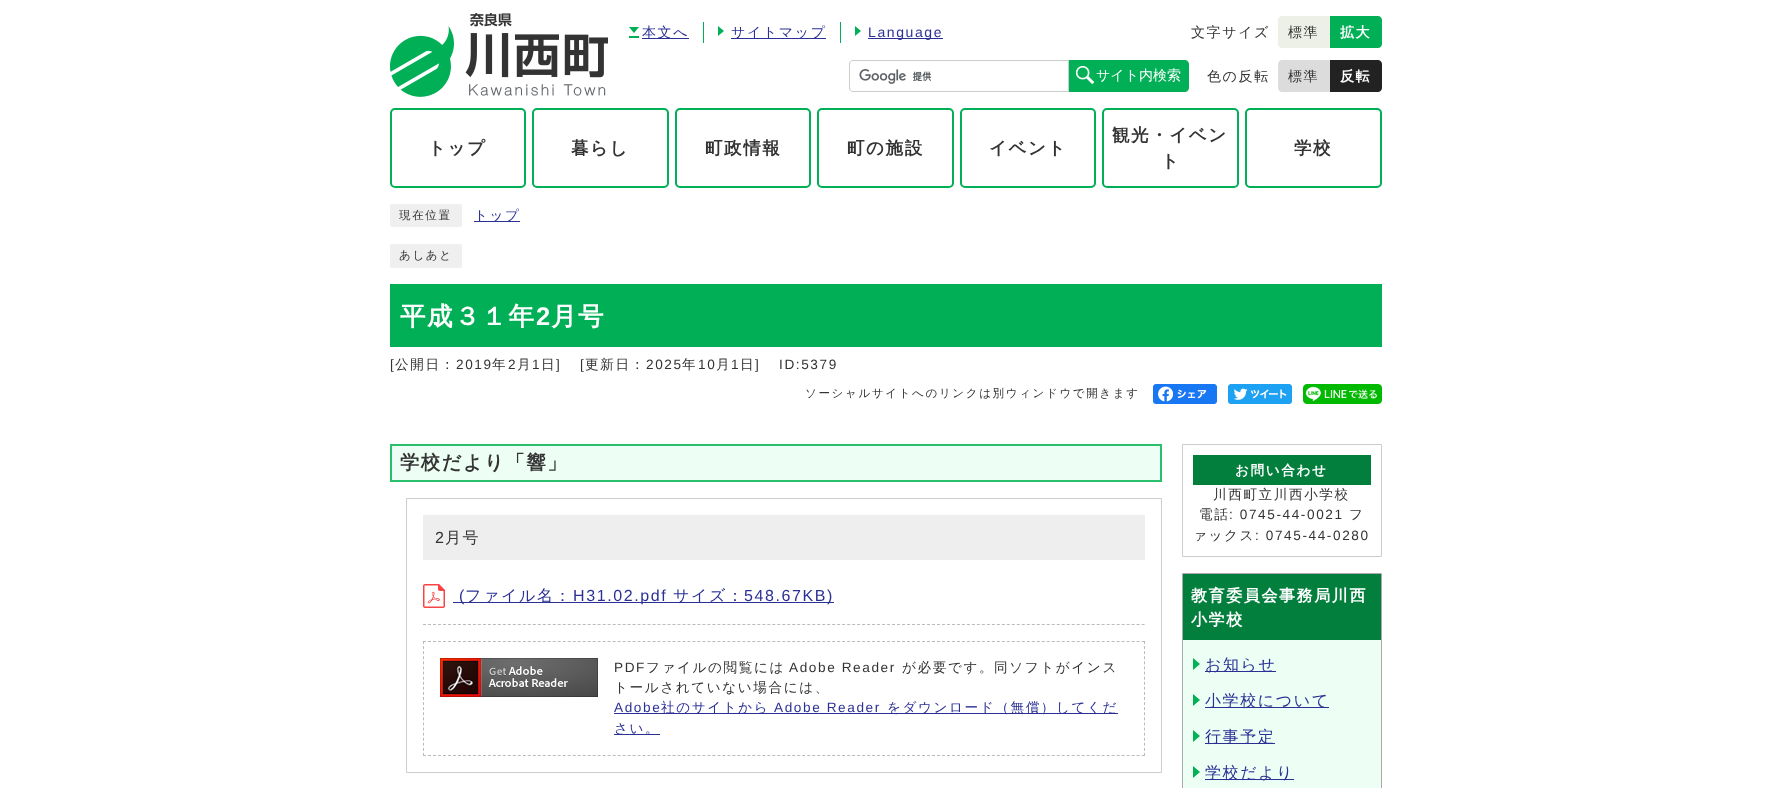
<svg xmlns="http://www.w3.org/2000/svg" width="1771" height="788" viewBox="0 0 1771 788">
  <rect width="100%" height="100%" fill="#fff"/>
  <image x="390" y="13" width="218" height="84" href="img/1.png"/>
  <path d="M629 27H639L634 33Z" fill="#00af56"/>
  <path d="M642 38h47v1H642z" fill="#2b3095"/>
  <path d="M629 36h10v2H629z" fill="#00af56"/>
  <path d="M703 22h1v21H703z" fill="#00af56"/>
  <path d="M718 36V26L724 31Z" fill="#00af56"/>
  <path d="M731 38h95v1H731z" fill="#2b3095"/>
  <path d="M840 22h1v21H840z" fill="#00af56"/>
  <path d="M855 36V26L861 31Z" fill="#00af56"/>
  <path d="M868 38h75v1H868z" fill="#2b3095"/>
  <path d="M1282 16H1330V48H1282C1280 48 1278 46 1278 44V20C1278 18 1280 16 1282 16Z" fill="#ecf0e6"/>
  <path d="M1330 16H1378C1380 16 1382 18 1382 20V44C1382 46 1380 48 1378 48H1330Z" fill="#00af56"/>
  <image x="859" y="69" width="73" height="15" href="img/2.png"/>
  <path d="M853 60.5H1068.5V91.5H853C851 91.5 849.5 90 849.5 88V64C849.5 62 851 60.5 853 60.5Z" fill="none" stroke="#ccc"/>
  <path d="M1069 60H1185C1187 60 1189 62 1189 64V88C1189 90 1187 92 1185 92H1069Z" fill="#00af56"/>
  <image x="1076" y="66" width="18" height="18" href="img/3.png"/>
  <path d="M1282 60H1330V92H1282C1280 92 1278 90 1278 88V64C1278 62 1280 60 1282 60Z" fill="#dcdcdc"/>
  <path d="M1330 60H1378C1380 60 1382 62 1382 64V88C1382 90 1380 92 1378 92H1330Z" fill="#222"/>
  <rect x="391" y="109" width="134" height="78" rx="4" fill="none" stroke="#00af56" stroke-width="2"/>
  <rect x="533" y="109" width="135" height="78" rx="4" fill="none" stroke="#00af56" stroke-width="2"/>
  <rect x="676" y="109" width="134" height="78" rx="4" fill="none" stroke="#00af56" stroke-width="2"/>
  <rect x="818" y="109" width="135" height="78" rx="4" fill="none" stroke="#00af56" stroke-width="2"/>
  <rect x="961" y="109" width="134" height="78" rx="4" fill="none" stroke="#00af56" stroke-width="2"/>
  <rect x="1103" y="109" width="135" height="78" rx="4" fill="none" stroke="#00af56" stroke-width="2"/>
  <rect x="1246" y="109" width="135" height="78" rx="4" fill="none" stroke="#00af56" stroke-width="2"/>
  <rect x="390" y="204" width="72" height="23" rx="2" fill="#efefef"/>
  <path d="M474 221h46v1H474z" fill="#2b3095"/>
  <rect x="390" y="244" width="72" height="24" rx="2" fill="#efefef"/>
  <path d="M390 284h992v63H390z" fill="#00af56"/>
  <image x="1153" y="384" width="64" height="20" href="img/4.png"/>
  <image x="1228" y="384" width="64" height="20" href="img/5.png"/>
  <image x="1303" y="384" width="79" height="20" href="img/6.png"/>
  <path d="M391 445h770v36H391z" fill="#edfff5" stroke="#2abf6d" stroke-width="2"/>
  <path d="M406.5 498.5h755v274H406.5z" fill="none" stroke="#ccc"/>
  <path d="M423 515h722v45H423z" fill="#eee"/>
  <path d="M423 624.5H1145" fill="none" stroke="#bbb" stroke-dasharray="3 1.99"/>
  <image x="423" y="584" width="22" height="24" href="img/7.png"/>
  <path d="M453 602h381v1H453z" fill="#2b3095"/>
  <path d="M423 641.5H1145" fill="none" stroke="#bbb" stroke-dasharray="3 1.99"/>
  <path d="M1144.5 641V756" fill="none" stroke="#bbb" stroke-dasharray="3 2.09"/>
  <path d="M423 755.5H1145" fill="none" stroke="#bbb" stroke-dasharray="3 1.99"/>
  <path d="M423.5 641V756" fill="none" stroke="#bbb" stroke-dasharray="3 2.09"/>
  <image x="440" y="658" width="158" height="39" href="img/8.png"/>
  <path d="M614 713h504v1H614z" fill="#2b3095"/>
  <path d="M614 734h46v1H614z" fill="#2b3095"/>
  <path d="M1182.5 444.5h199v112H1182.5z" fill="none" stroke="#ccc"/>
  <path d="M1193 455h178v30H1193z" fill="#037f3d"/>
  <path d="M1182.5 573.5h199v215H1182.5z" fill="none" stroke="#aaa"/>
  <path d="M1183 574h198v66H1183z" fill="#037f3d"/>
  <path d="M1183 640h198v148H1183z" fill="#edfff5"/>
  <path d="M1193 670V658L1200 664Z" fill="#00af56"/>
  <path d="M1205 671h71v1H1205z" fill="#2b3095"/>
  <path d="M1193 706V694L1200 700Z" fill="#00af56"/>
  <path d="M1205 707h124v1H1205z" fill="#2b3095"/>
  <path d="M1193 742V730L1200 736Z" fill="#00af56"/>
  <path d="M1205 743h70v1H1205z" fill="#2b3095"/>
  <path d="M1193 778V766L1200 772Z" fill="#00af56"/>
  <path d="M1205 779h89v1H1205z" fill="#2b3095"/>
  <g font-family="WenQuanYi Zen Hei" font-size="14" font-weight="500" letter-spacing="1.6" fill="#2b3095">
    <text x="642" y="37">本文へ</text>
    <text x="731" y="37">サイトマップ</text>
  </g>
  <text x="868" y="37" font-family="Liberation Sans" font-size="14" letter-spacing="1.6" fill="#2b3095">Language</text>
  <g font-family="WenQuanYi Zen Hei" font-size="14" font-weight="500" letter-spacing="1.6" fill="#333">
    <text x="1191" y="37">文字サイズ</text>
    <text x="1288" y="37">標準</text>
  </g>
  <text x="1340" y="37" font-family="WenQuanYi Zen Hei" font-size="14" font-weight="bold" letter-spacing="1.6" fill="#fff">拡大</text>
  <text x="1096" y="80" font-family="WenQuanYi Zen Hei" font-size="14" font-weight="500" fill="#fff">サイト内検索</text>
  <g font-family="WenQuanYi Zen Hei" font-size="14" font-weight="500" letter-spacing="1.6" fill="#333">
    <text x="1207" y="81">色の反転</text>
    <text x="1288" y="81">標準</text>
  </g>
  <text x="1340" y="81" font-family="WenQuanYi Zen Hei" font-size="14" font-weight="bold" letter-spacing="1.6" fill="#fff">反転</text>
  <g font-family="WenQuanYi Zen Hei" font-size="17.5" font-weight="bold" letter-spacing="1.6" fill="#333">
    <text x="428" y="154">トップ</text>
    <text x="571" y="154">暮らし</text>
    <text x="705" y="154">町政情報</text>
    <text x="847" y="154">町の施設</text>
    <text x="989" y="154">イベント</text>
    <text x="1112" y="141">観光・イベン</text>
    <text x="1161" y="167">ト</text>
    <text x="1294" y="154">学校</text>
  </g>
  <text x="399" y="219" font-family="WenQuanYi Zen Hei" font-size="11.55" font-weight="500" letter-spacing="1.6" fill="#333">現在位置</text>
  <text x="474" y="220" font-family="WenQuanYi Zen Hei" font-size="13.6" font-weight="500" letter-spacing="1.6" fill="#2b3095">トップ</text>
  <text x="399" y="259" font-family="WenQuanYi Zen Hei" font-size="11.55" font-weight="500" letter-spacing="1.6" fill="#333">あしあと</text>
  <text x="400" y="325" font-family="WenQuanYi Zen Hei" font-size="25.5" font-weight="bold" letter-spacing="1.6" fill="#fff">平成３１年</text>
  <text x="536" y="325" font-family="Liberation Sans" font-size="25.5" font-weight="bold" letter-spacing="1.6" fill="#fff">2</text>
  <text x="551" y="325" font-family="WenQuanYi Zen Hei" font-size="25.5" font-weight="bold" letter-spacing="1.6" fill="#fff">月号</text>
  <text x="390" y="369" font-family="Liberation Sans" font-size="13.6" letter-spacing="1.6" fill="#333">[</text>
  <text x="395" y="369" font-family="WenQuanYi Zen Hei" font-size="13.6" font-weight="500" letter-spacing="1.6" fill="#333">公開日：</text>
  <text x="456" y="369" font-family="Liberation Sans" font-size="13.6" letter-spacing="1.6" fill="#333">2019</text>
  <text x="492" y="369" font-family="WenQuanYi Zen Hei" font-size="13.6" font-weight="500" letter-spacing="1.6" fill="#333">年</text>
  <text x="508" y="369" font-family="Liberation Sans" font-size="13.6" letter-spacing="1.6" fill="#333">2</text>
  <text x="517" y="369" font-family="WenQuanYi Zen Hei" font-size="13.6" font-weight="500" letter-spacing="1.6" fill="#333">月</text>
  <text x="532" y="369" font-family="Liberation Sans" font-size="13.6" letter-spacing="1.6" fill="#333">1</text>
  <text x="541" y="369" font-family="WenQuanYi Zen Hei" font-size="13.6" font-weight="500" letter-spacing="1.6" fill="#333">日</text>
  <g font-family="Liberation Sans" font-size="13.6" letter-spacing="1.6" fill="#333">
    <text x="556" y="369">]</text>
    <text x="580" y="369">[</text>
  </g>
  <text x="585" y="369" font-family="WenQuanYi Zen Hei" font-size="13.6" font-weight="500" letter-spacing="1.6" fill="#333">更新日：</text>
  <text x="646" y="369" font-family="Liberation Sans" font-size="13.6" letter-spacing="1.6" fill="#333">2025</text>
  <text x="682" y="369" font-family="WenQuanYi Zen Hei" font-size="13.6" font-weight="500" letter-spacing="1.6" fill="#333">年</text>
  <text x="698" y="369" font-family="Liberation Sans" font-size="13.6" letter-spacing="1.6" fill="#333">10</text>
  <text x="716" y="369" font-family="WenQuanYi Zen Hei" font-size="13.6" font-weight="500" letter-spacing="1.6" fill="#333">月</text>
  <text x="731" y="369" font-family="Liberation Sans" font-size="13.6" letter-spacing="1.6" fill="#333">1</text>
  <text x="740" y="369" font-family="WenQuanYi Zen Hei" font-size="13.6" font-weight="500" letter-spacing="1.6" fill="#333">日</text>
  <g font-family="Liberation Sans" font-size="13.6" letter-spacing="1.6" fill="#333">
    <text x="755" y="369">]</text>
    <text x="779" y="369">ID:5379</text>
  </g>
  <text x="805" y="397" font-family="WenQuanYi Zen Hei" font-size="11.55" font-weight="500" letter-spacing="1.6" fill="#333">ソーシャルサイトへのリンクは別ウィンドウで開きます</text>
  <text x="400" y="469" font-family="WenQuanYi Zen Hei" font-size="19.25" font-weight="bold" letter-spacing="1.6" fill="#333">学校だより「響」</text>
  <text x="435" y="543" font-family="Liberation Sans" font-size="16" letter-spacing="1.6" fill="#333">2</text>
  <text x="445" y="543" font-family="WenQuanYi Zen Hei" font-size="16" font-weight="500" letter-spacing="1.6" fill="#333">月号</text>
  <text x="459" y="601" font-family="Liberation Sans" font-size="16" letter-spacing="1.6" fill="#2b3095">(</text>
  <text x="465" y="601" font-family="WenQuanYi Zen Hei" font-size="16" font-weight="500" letter-spacing="1.6" fill="#2b3095">ファイル名：</text>
  <text x="573" y="601" font-family="Liberation Sans" font-size="16" letter-spacing="1.6" fill="#2b3095">H31.02.pdf</text>
  <text x="673" y="601" font-family="WenQuanYi Zen Hei" font-size="16" font-weight="500" letter-spacing="1.6" fill="#2b3095">サイズ：</text>
  <text x="744" y="601" font-family="Liberation Sans" font-size="16" letter-spacing="1.6" fill="#2b3095">548.67KB)</text>
  <text x="614" y="672" font-family="Liberation Sans" font-size="13.6" letter-spacing="1.6" fill="#333">PDF</text>
  <text x="646" y="672" font-family="WenQuanYi Zen Hei" font-size="13.6" font-weight="500" letter-spacing="1.6" fill="#333">ファイルの閲覧には</text>
  <text x="789" y="672" font-family="Liberation Sans" font-size="13.6" letter-spacing="1.6" fill="#333">Adobe Reader</text>
  <g font-family="WenQuanYi Zen Hei" font-size="13.6" font-weight="500" letter-spacing="1.6" fill="#333">
    <text x="902" y="672">が必要です。同ソフトがインス</text>
    <text x="614" y="692">トールされていない場合には、</text>
  </g>
  <text x="614" y="712" font-family="Liberation Sans" font-size="13.6" letter-spacing="1.6" fill="#2b3095">Adobe</text>
  <text x="661" y="712" font-family="WenQuanYi Zen Hei" font-size="13.6" font-weight="500" letter-spacing="1.6" fill="#2b3095">社のサイトから</text>
  <text x="774" y="712" font-family="Liberation Sans" font-size="13.6" letter-spacing="1.6" fill="#2b3095">Adobe Reader</text>
  <g font-family="WenQuanYi Zen Hei" font-size="13.6" font-weight="500" letter-spacing="1.6" fill="#2b3095">
    <text x="887" y="712">をダウンロード（無償）してくだ</text>
    <text x="614" y="733">さい。</text>
  </g>
  <text x="1235" y="475" font-family="WenQuanYi Zen Hei" font-size="13.6" font-weight="bold" letter-spacing="1.6" fill="#fff">お問い合わせ</text>
  <g font-family="WenQuanYi Zen Hei" font-size="13.6" font-weight="500" letter-spacing="1.6" fill="#333">
    <text x="1213" y="499">川西町立川西小学校</text>
    <text x="1199" y="519">電話</text>
  </g>
  <text x="1229" y="519" font-family="Liberation Sans" font-size="13.6" letter-spacing="1.6" fill="#333">: 0745-44-0021</text>
  <g font-family="WenQuanYi Zen Hei" font-size="13.6" font-weight="500" letter-spacing="1.6" fill="#333">
    <text x="1349" y="519">フ</text>
    <text x="1193" y="540">ァックス</text>
  </g>
  <text x="1255" y="540" font-family="Liberation Sans" font-size="13.6" letter-spacing="1.6" fill="#333">: 0745-44-0280</text>
  <g font-family="WenQuanYi Zen Hei" font-size="16" font-weight="bold" letter-spacing="1.6" fill="#fff">
    <text x="1191" y="601">教育委員会事務局川西</text>
    <text x="1191" y="625">小学校</text>
  </g>
  <g font-family="WenQuanYi Zen Hei" font-size="16" font-weight="500" letter-spacing="1.6" fill="#2b3095">
    <text x="1205" y="670">お知らせ</text>
    <text x="1205" y="706">小学校について</text>
    <text x="1205" y="742">行事予定</text>
    <text x="1205" y="778">学校だより</text>
  </g>
</svg>
